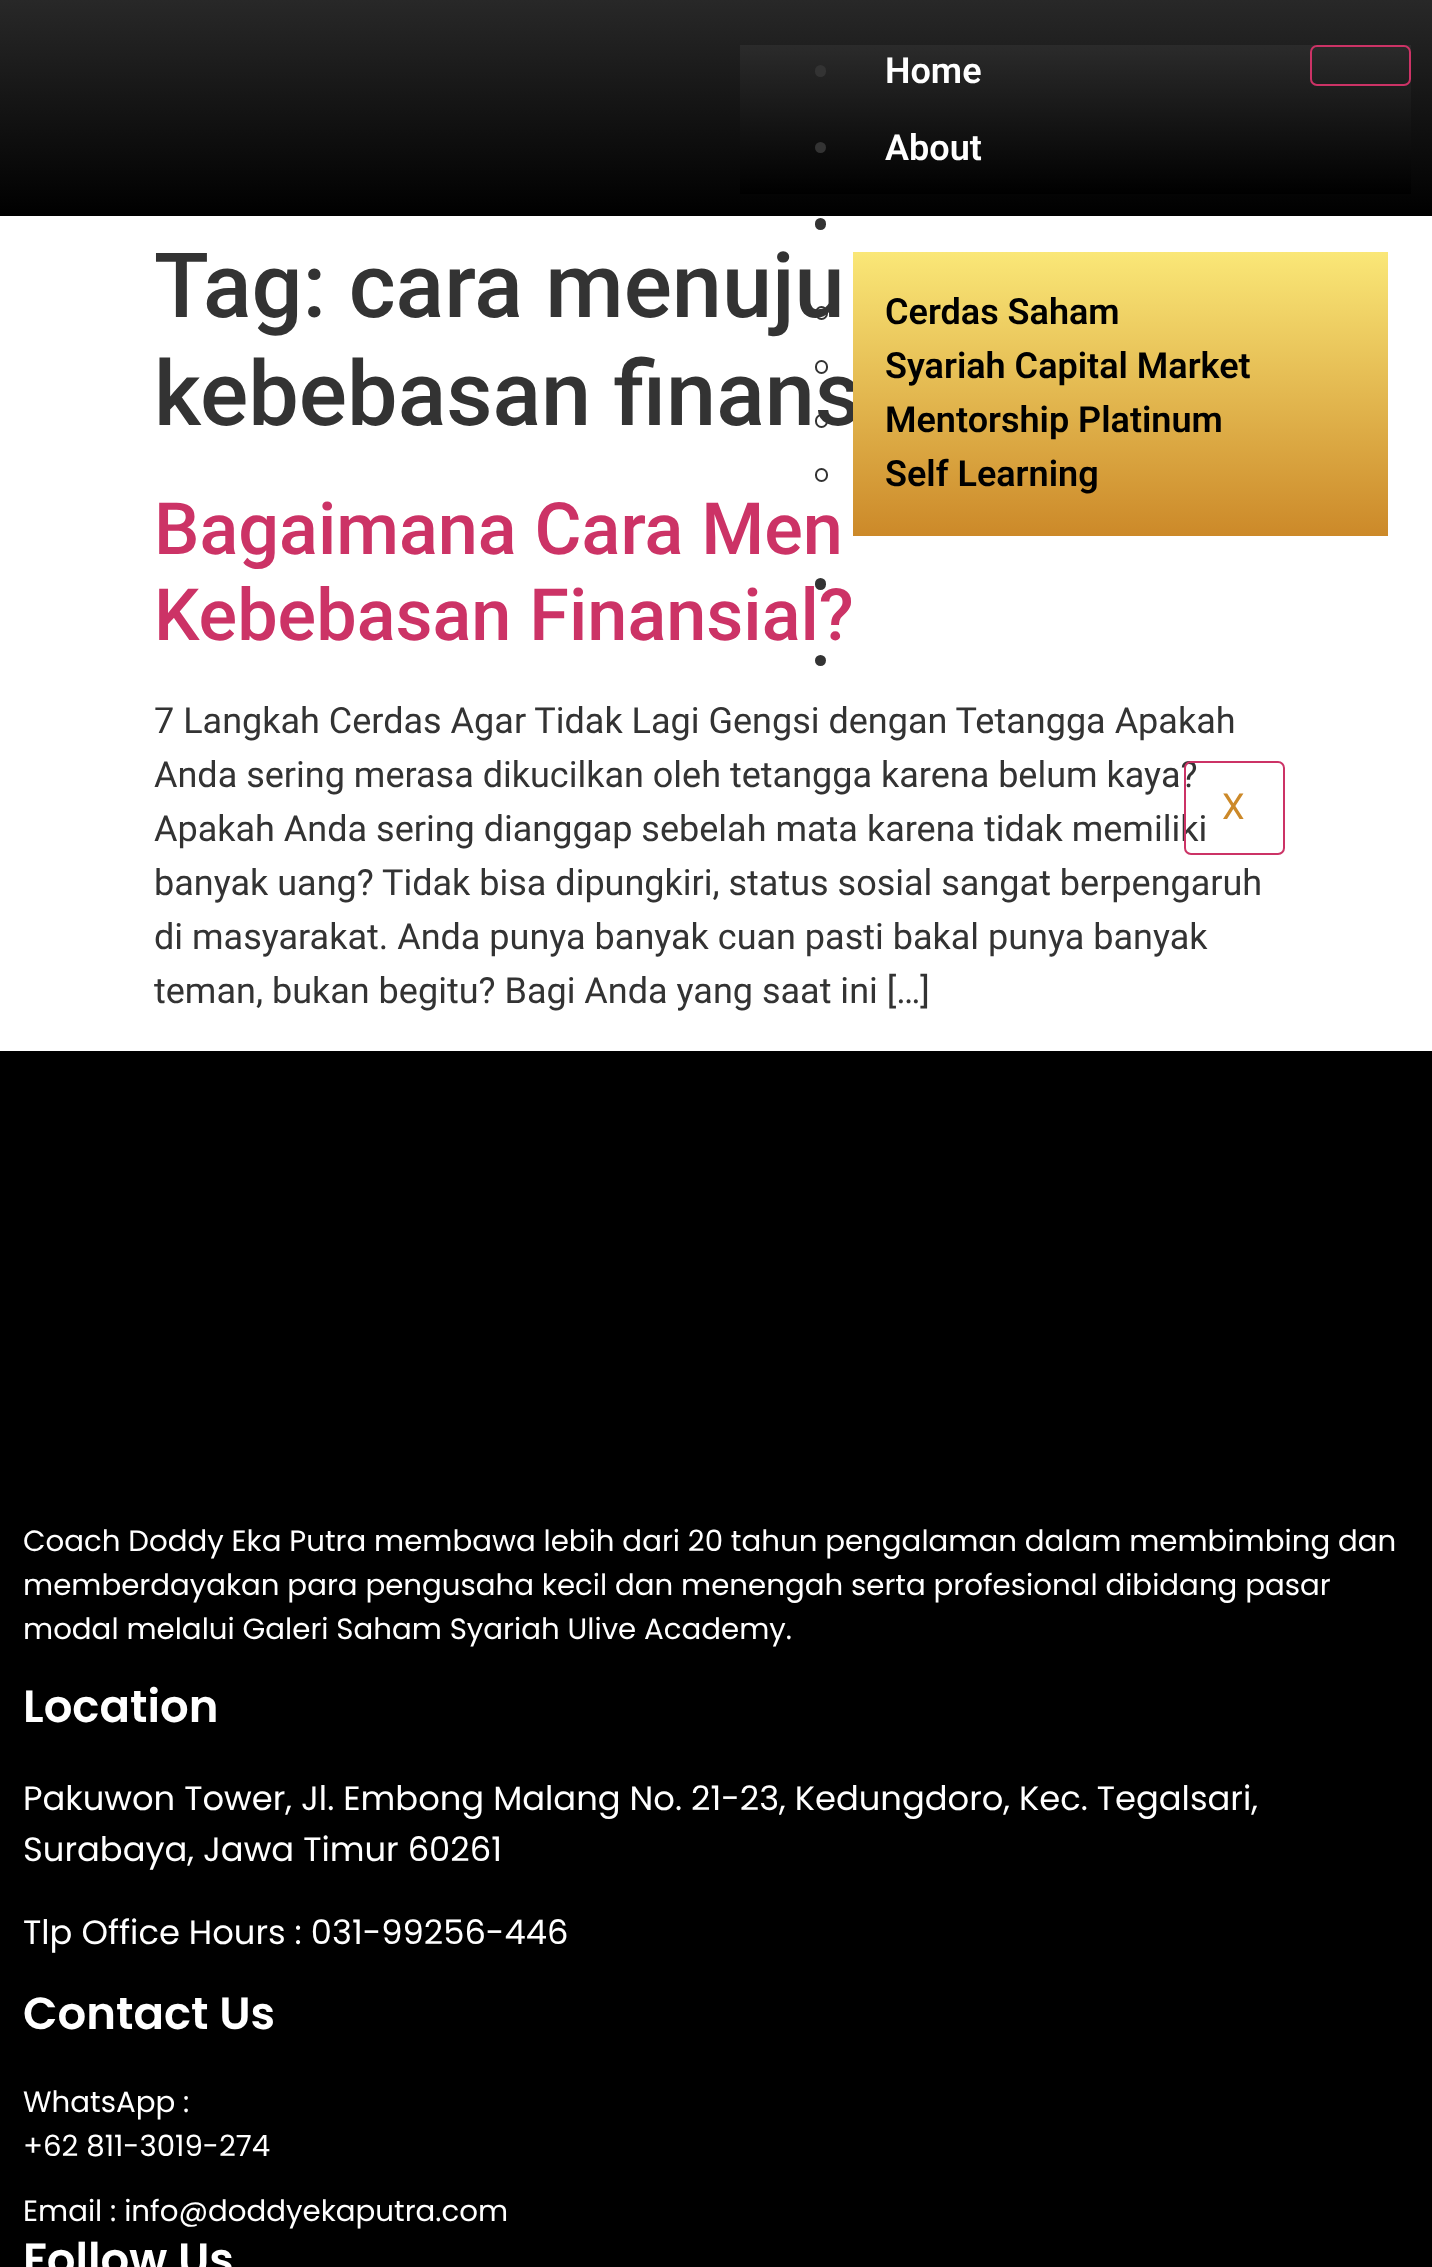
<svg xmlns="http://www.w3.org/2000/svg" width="1432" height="2267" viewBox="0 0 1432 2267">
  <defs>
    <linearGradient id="g1" gradientUnits="userSpaceOnUse" x1="717" y1="0" x2="717" y2="216"><stop offset="0" stop-color="#282828"/><stop offset="1" stop-color="#000"/></linearGradient>
    <linearGradient id="g2" gradientUnits="userSpaceOnUse" x1="1076" y1="45" x2="1076" y2="194"><stop offset="0" stop-color="#2b2b2b"/><stop offset="1" stop-color="#000"/></linearGradient>
    <linearGradient id="g3" gradientUnits="userSpaceOnUse" x1="1121" y1="252" x2="1121" y2="536"><stop offset="0" stop-color="#fae777"/><stop offset="1" stop-color="#cc8929"/></linearGradient>
  </defs>
  <rect width="100%" height="100%" fill="#fff"/>
  <path d="M0 0h1432v216H0z" fill="url(#g1)"/>
  <path d="M740 45h671v149H740z" fill="url(#g2)"/>
  <rect x="815" y="65" width="11" height="12" rx="5.5" fill="#333"/>
  <circle cx="820.5" cy="147.5" r="5.5" fill="#333"/>
  <rect x="815" y="218" width="11" height="12" rx="5.5" fill="#333"/>
  <rect x="816" y="307" width="11" height="12" rx="5.5" fill="none" stroke="#333" stroke-width="2"/>
  <rect x="816" y="361" width="11" height="12" rx="5.5" fill="none" stroke="#333" stroke-width="2"/>
  <rect x="816" y="415" width="11" height="12" rx="5.5" fill="none" stroke="#333" stroke-width="2"/>
  <rect x="816" y="469" width="11" height="12" rx="5.5" fill="none" stroke="#333" stroke-width="2"/>
  <circle cx="820.5" cy="660.5" r="5.5" fill="#333"/>
  <rect x="1311" y="46" width="99" height="39" rx="6" fill="none" stroke="#c36" stroke-width="2"/>
  <path d="M0 1051h1432v1216H0z" fill="#000"/>
  <g font-family="Roboto" font-size="36" font-weight="600" fill="#fff">
    <text x="885" y="83">Home</text>
    <text x="885" y="160">About</text>
  </g>
  <g font-family="Roboto" font-size="90" font-weight="500" fill="#333">
    <text x="154" y="317">Tag: cara menuju</text>
    <text x="154" y="425">kebebasan finans</text>
  </g>
  <path d="M853 252h535v284H853z" fill="url(#g3)"/>
  <g font-family="Roboto" font-size="36" font-weight="600" fill="#000">
    <text x="885" y="486">Self Learning</text>
    <text x="885" y="432">Mentorship Platinum</text>
    <text x="885" y="378">Syariah Capital Market</text>
    <text x="885" y="324">Cerdas Saham</text>
  </g>
  <g font-family="Roboto" font-size="72" font-weight="500" fill="#c36">
    <text x="154" y="554">Bagaimana Cara Men</text>
    <text x="154" y="640">Kebebasan Finansial?</text>
  </g>
  <rect x="815" y="578" width="11" height="12" rx="5.5" fill="#333"/>
  <g font-family="Roboto" font-size="36" fill="#333">
    <text x="154" y="733">7 Langkah Cerdas Agar Tidak Lagi Gengsi dengan Tetangga Apakah</text>
    <text x="154" y="787">Anda sering merasa dikucilkan oleh tetangga karena belum kaya?</text>
    <text x="154" y="841">Apakah Anda sering dianggap sebelah mata karena tidak memiliki</text>
  </g>
  <rect x="1185" y="762" width="99" height="92" rx="6" fill="none" stroke="#c36" stroke-width="2"/>
  <text x="1222" y="819" font-family="Roboto" font-size="36" fill="#cc8929">X</text>
  <g font-family="Roboto" font-size="36" fill="#333">
    <text x="154" y="895">banyak uang? Tidak bisa dipungkiri, status sosial sangat berpengaruh</text>
    <text x="154" y="949">di masyarakat. Anda punya banyak cuan pasti bakal punya banyak</text>
    <text x="154" y="1003">teman, bukan begitu? Bagi Anda yang saat ini […]</text>
  </g>
  <g font-family="Poppins" font-size="29.25" fill="#fff">
    <text x="23" y="1551">Coach Doddy Eka Putra membawa lebih dari 20 tahun pengalaman dalam membimbing dan</text>
    <text x="23" y="1595">memberdayakan para pengusaha kecil dan menengah serta profesional dibidang pasar</text>
    <text x="23" y="1639">modal melalui Galeri Saham Syariah Ulive Academy.</text>
  </g>
  <text x="23" y="1722" font-family="Poppins" font-size="45" font-weight="600" fill="#fff">Location</text>
  <g font-family="Poppins" font-size="33.75" fill="#fff">
    <text x="23" y="1810">Pakuwon Tower, Jl. Embong Malang No. 21-23, Kedungdoro, Kec. Tegalsari,</text>
    <text x="23" y="1861">Surabaya, Jawa Timur 60261</text>
    <text x="23" y="1944">Tlp Office Hours : 031-99256-446</text>
  </g>
  <text x="23" y="2029" font-family="Poppins" font-size="45" font-weight="600" fill="#fff">Contact Us</text>
  <g font-family="Poppins" font-size="29.25" fill="#fff">
    <text x="23" y="2112">WhatsApp :</text>
    <text x="23" y="2156">+62 811-3019-274</text>
    <text x="23" y="2221">Email : info@doddyekaputra.com</text>
  </g>
  <text x="23" y="2275" font-family="Poppins" font-size="45" font-weight="600" fill="#fff">Follow Us</text>
</svg>
